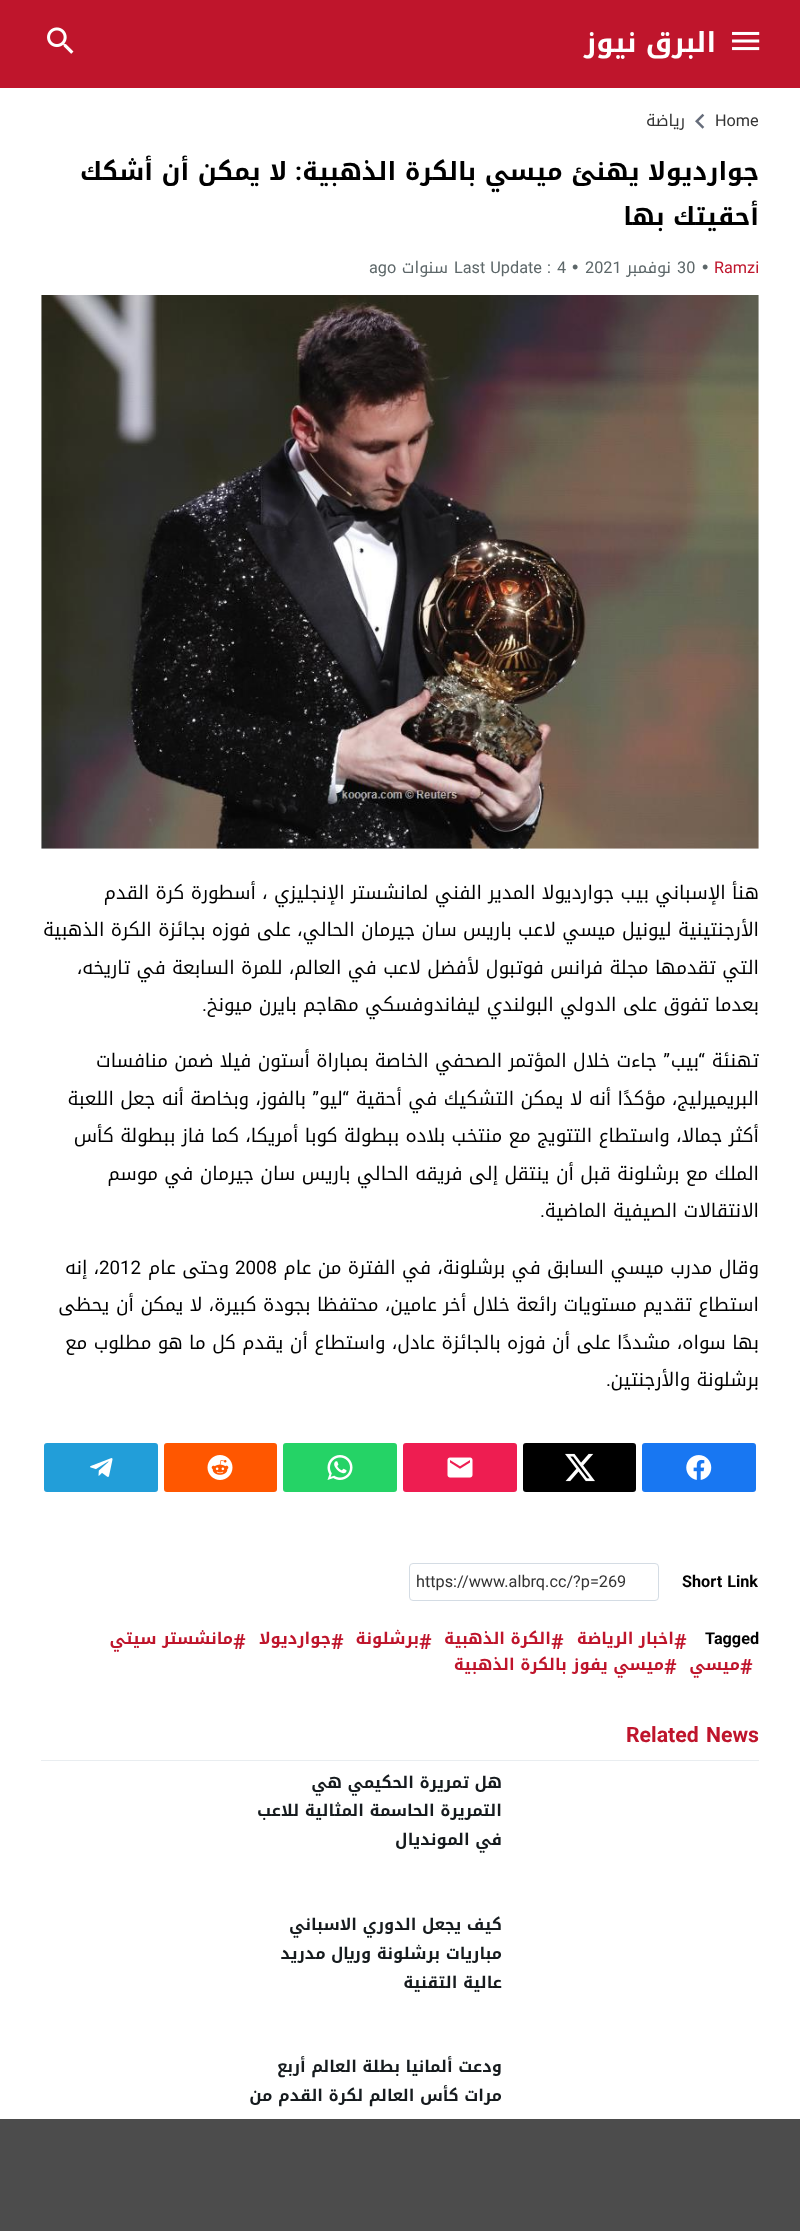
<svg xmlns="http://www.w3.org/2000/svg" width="800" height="2231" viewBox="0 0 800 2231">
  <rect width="100%" height="100%" fill="#fff"/>
  <path d="M0 0h800v88H0z" fill="#bf152c"/>
  <image x="732" y="31" width="28" height="20" href="img/1.png"/>
  <image x="47" y="27" width="27" height="27" href="img/2.png"/>
  <image x="695" y="113" width="10" height="16" href="img/3.png"/>
  <image x="41" y="295" width="718" height="554" href="img/4.png"/>
  <rect x="640.5" y="1441.5" width="117" height="52" rx="4.5" fill="#1877f2" stroke="#fff" stroke-width="3"/>
  <image x="686" y="1455" width="26" height="25" href="img/5.png"/>
  <rect x="521.5" y="1441.5" width="116" height="52" rx="4.5" fill="#000" stroke="#fff" stroke-width="3"/>
  <image x="565" y="1453" width="30" height="29" href="img/6.png"/>
  <rect x="401.5" y="1441.5" width="117" height="52" rx="4.5" fill="#ee1d51" stroke="#fff" stroke-width="3"/>
  <image x="447" y="1457" width="26" height="21" href="img/7.png"/>
  <rect x="281.5" y="1441.5" width="117" height="52" rx="4.5" fill="#25d366" stroke="#fff" stroke-width="3"/>
  <image x="327" y="1455" width="26" height="25" href="img/8.png"/>
  <rect x="162.5" y="1441.5" width="116" height="52" rx="4.5" fill="#ff5700" stroke="#fff" stroke-width="3"/>
  <image x="207" y="1455" width="26" height="25" href="img/9.png"/>
  <rect x="42.5" y="1441.5" width="117" height="52" rx="4.5" fill="#229ed9" stroke="#fff" stroke-width="3"/>
  <image x="90" y="1458" width="23" height="19" href="img/10.png"/>
  <rect x="409.5" y="1563.5" width="249" height="37" rx="3.5" fill="none" stroke="#d4dce4"/>
  <path d="M41 1760h718v1H41z" fill="#e9edf0"/>
  <path d="M0 2119h800v112H0z" fill="#000000b3"/>
  <text x="716" y="52" font-family="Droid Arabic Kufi" font-size="27.5" font-weight="bold" direction="rtl" fill="#fff">البرق نيوز</text>
  <text x="715" y="126" font-family="Roboto" font-size="16.25" fill="#333">Home</text>
  <text x="685" y="126" font-family="Droid Arabic Kufi" font-size="16.25" direction="rtl" fill="#333">رياضة</text>
  <text x="759" y="180" font-family="Droid Arabic Kufi" font-size="25" font-weight="bold" direction="rtl" fill="#000">جوارديولا يهنئ ميسي بالكرة الذهبية</text>
  <text x="302" y="180" font-family="Roboto" font-size="25" font-weight="bold" direction="rtl" fill="#000">:</text>
  <g font-family="Droid Arabic Kufi" font-size="25" font-weight="bold" direction="rtl" fill="#000">
    <text x="287" y="180">لا يمكن أن أشكك</text>
    <text x="759" y="225">أحقيتك بها</text>
  </g>
  <text x="714" y="273" font-family="Roboto" font-size="16.25" fill="#bf152c">Ramzi</text>
  <text x="702" y="273" font-family="Liberation Sans" font-size="18" fill="#5d6769">•</text>
  <text x="677" y="273" font-family="Roboto" font-size="16.25" fill="#5d6769">30</text>
  <text x="671" y="273" font-family="Droid Arabic Kufi" font-size="16.25" direction="rtl" fill="#5d6769">نوفمبر</text>
  <text x="585" y="273" font-family="Roboto" font-size="16.25" fill="#5d6769">2021</text>
  <text x="572" y="273" font-family="Liberation Sans" font-size="18" fill="#5d6769">•</text>
  <g font-family="Roboto" font-size="16.25" fill="#5d6769">
    <text x="557" y="273">4</text>
    <text x="454" y="273" word-spacing="1">Last Update :</text>
  </g>
  <text x="448" y="273" font-family="Droid Arabic Kufi" font-size="16.25" direction="rtl" fill="#5d6769">سنوات</text>
  <text x="369" y="273" font-family="Roboto" font-size="16.25" fill="#5d6769">ago</text>
  <g font-family="Droid Arabic Kufi" font-size="18.75" direction="rtl" fill="#000">
    <text x="759" y="899">هنأ الإسباني بيب جوارديولا المدير الفني لمانشستر الإنجليزي ، أسطورة كرة القدم</text>
    <text x="759" y="936">الأرجنتينية ليونيل ميسي لاعب باريس سان جيرمان الحالي، على فوزه بجائزة الكرة الذهبية</text>
    <text x="759" y="974">التي تقدمها مجلة فرانس فوتبول لأفضل لاعب في العالم، للمرة السابعة في تاريخه،</text>
    <text x="759" y="1011">بعدما تفوق على الدولي البولندي ليفاندوفسكي مهاجم بايرن ميونخ</text>
  </g>
  <text x="207" y="1011" font-family="Roboto" font-size="18.75" direction="rtl" fill="#000">.</text>
  <text x="759" y="1067" font-family="Droid Arabic Kufi" font-size="18.75" direction="rtl" fill="#000">تهنئة</text>
  <text x="705" y="1067" font-family="Roboto" font-size="18.75" direction="rtl" fill="#000">“</text>
  <text x="699" y="1067" font-family="Droid Arabic Kufi" font-size="18.75" direction="rtl" fill="#000">بيب</text>
  <text x="670" y="1067" font-family="Roboto" font-size="18.75" direction="rtl" fill="#000">”</text>
  <g font-family="Droid Arabic Kufi" font-size="18.75" direction="rtl" fill="#000">
    <text x="657" y="1067">جاءت خلال المؤتمر الصحفي الخاصة بمباراة أستون فيلا ضمن منافسات</text>
    <text x="759" y="1105">البريميرليج، مؤكدًا أنه لا يمكن التشكيك في أحقية</text>
  </g>
  <text x="349" y="1105" font-family="Roboto" font-size="18.75" direction="rtl" fill="#000">“</text>
  <text x="343" y="1105" font-family="Droid Arabic Kufi" font-size="18.75" direction="rtl" fill="#000">ليو</text>
  <text x="319" y="1105" font-family="Roboto" font-size="18.75" direction="rtl" fill="#000">”</text>
  <g font-family="Droid Arabic Kufi" font-size="18.75" direction="rtl" fill="#000">
    <text x="306" y="1105">بالفوز، وبخاصة أنه جعل اللعبة</text>
    <text x="759" y="1142">أكثر جمالا، واستطاع التتويج مع منتخب بلاده ببطولة كوبا أمريكا، كما فاز ببطولة كأس</text>
    <text x="759" y="1180">الملك مع برشلونة قبل أن ينتقل إلى فريقه الحالي باريس سان جيرمان في موسم</text>
    <text x="759" y="1217">الانتقالات الصيفية الماضية</text>
  </g>
  <text x="545" y="1217" font-family="Roboto" font-size="18.75" direction="rtl" fill="#000">.</text>
  <text x="759" y="1274" font-family="Droid Arabic Kufi" font-size="18.75" direction="rtl" fill="#000">وقال مدرب ميسي السابق في برشلونة، في الفترة من عام</text>
  <text x="235" y="1274" font-family="Roboto" font-size="18.75" fill="#000">2008</text>
  <text x="229" y="1274" font-family="Droid Arabic Kufi" font-size="18.75" direction="rtl" fill="#000">وحتى عام</text>
  <text x="99" y="1274" font-family="Roboto" font-size="18.75" fill="#000">2012</text>
  <g font-family="Droid Arabic Kufi" font-size="18.75" direction="rtl" fill="#000">
    <text x="99" y="1274">، إنه</text>
    <text x="759" y="1311">استطاع تقديم مستويات رائعة خلال أخر عامين، محتفظا بجودة كبيرة، لا يمكن أن يحظى</text>
    <text x="759" y="1349">بها سواه، مشددًا على أن فوزه بالجائزة عادل، واستطاع أن يقدم كل ما هو مطلوب مع</text>
    <text x="759" y="1386">برشلونة والأرجنتين</text>
  </g>
  <text x="611" y="1386" font-family="Roboto" font-size="18.75" direction="rtl" fill="#000">.</text>
  <text x="682" y="1587" word-spacing="1" font-family="Roboto" font-size="16.25" font-weight="bold" fill="#000">Short Link</text>
  <text x="416" y="1587" font-family="Roboto" font-size="16.25" fill="#333">https://www.albrq.cc/?p=269</text>
  <text x="705" y="1644" font-family="Roboto" font-size="16.25" font-weight="bold" fill="#000">Tagged</text>
  <text x="674" y="1649" font-family="Roboto" font-size="21.25" font-weight="bold" fill="#bf152c">#</text>
  <text x="674" y="1644" font-family="Droid Arabic Kufi" font-size="16.25" font-weight="bold" direction="rtl" fill="#bf152c">اخبار الرياضة</text>
  <text x="551" y="1649" font-family="Roboto" font-size="21.25" font-weight="bold" fill="#bf152c">#</text>
  <text x="551" y="1644" font-family="Droid Arabic Kufi" font-size="16.25" font-weight="bold" direction="rtl" fill="#bf152c">الكرة الذهبية</text>
  <text x="419" y="1649" font-family="Roboto" font-size="21.25" font-weight="bold" fill="#bf152c">#</text>
  <text x="419" y="1644" font-family="Droid Arabic Kufi" font-size="16.25" font-weight="bold" direction="rtl" fill="#bf152c">برشلونة</text>
  <text x="331" y="1649" font-family="Roboto" font-size="21.25" font-weight="bold" fill="#bf152c">#</text>
  <text x="331" y="1644" font-family="Droid Arabic Kufi" font-size="16.25" font-weight="bold" direction="rtl" fill="#bf152c">جوارديولا</text>
  <text x="233" y="1649" font-family="Roboto" font-size="21.25" font-weight="bold" fill="#bf152c">#</text>
  <text x="233" y="1644" font-family="Droid Arabic Kufi" font-size="16.25" font-weight="bold" direction="rtl" fill="#bf152c">مانشستر سيتي</text>
  <text x="740" y="1674" font-family="Roboto" font-size="21.25" font-weight="bold" fill="#bf152c">#</text>
  <text x="740" y="1670" font-family="Droid Arabic Kufi" font-size="16.25" font-weight="bold" direction="rtl" fill="#bf152c">ميسي</text>
  <text x="664" y="1674" font-family="Roboto" font-size="21.25" font-weight="bold" fill="#bf152c">#</text>
  <text x="664" y="1670" font-family="Droid Arabic Kufi" font-size="16.25" font-weight="bold" direction="rtl" fill="#bf152c">ميسي يفوز بالكرة الذهبية</text>
  <text x="626" y="1742" word-spacing="2" font-family="Roboto" font-size="21.25" font-weight="bold" fill="#bf152c">Related News</text>
  <g font-family="Droid Arabic Kufi" font-size="16.25" font-weight="bold" direction="rtl" fill="#161b1e">
    <text x="502" y="1788">هل تمريرة الحكيمي هي</text>
    <text x="502" y="1816">التمريرة الحاسمة المثالية للاعب</text>
    <text x="502" y="1845">في المونديال</text>
    <text x="502" y="1930">كيف يجعل الدوري الاسباني</text>
    <text x="502" y="1959">مباريات برشلونة وريال مدريد</text>
    <text x="502" y="1988">عالية التقنية</text>
    <text x="502" y="2072">ودعت ألمانيا بطلة العالم أربع</text>
    <text x="502" y="2101">مرات كأس العالم لكرة القدم من</text>
  </g>
</svg>
